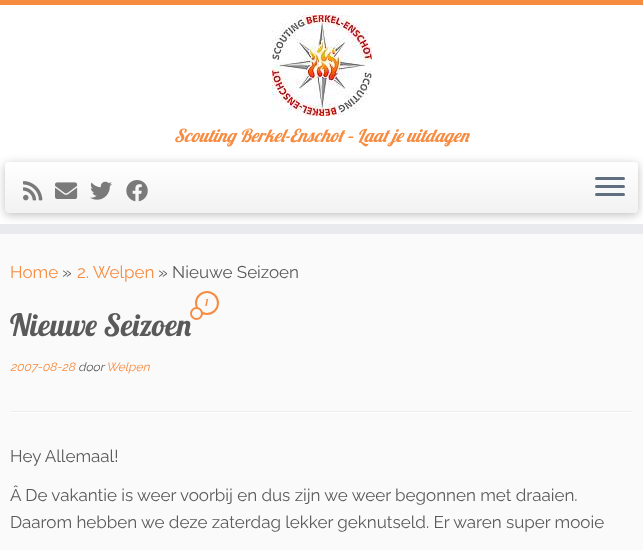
<svg xmlns="http://www.w3.org/2000/svg" width="643" height="550" viewBox="0 0 643 550">
  <defs>
    <linearGradient id="g1" gradientUnits="userSpaceOnUse" x1="322" y1="162" x2="322" y2="213"><stop offset="0" stop-color="#fff"/><stop offset="1" stop-color="#f2f2f2"/></linearGradient>
  </defs>
  <rect width="100%" height="100%" fill="#fafafa"/>
  <path d="M0 5h643v219H0z" fill="#fff"/>
  <path d="M0 0h643v5H0z" fill="#f78c40"/>
  <path d="M0 224h643v10H0z" fill="#e9eaee"/>
  <image x="272" y="15" width="100" height="101" href="img/1.png"/>
  <rect x="5" y="164" width="633" height="51" rx="4" fill="#00000040" filter="blur(5px)"/>
  <rect x="5" y="162" width="633" height="51" rx="4" fill="url(#g1)"/>
  <image x="23" y="181" width="20" height="20" href="img/2.png"/>
  <image x="55" y="182" width="23" height="17" href="img/3.png"/>
  <image x="90" y="181" width="22" height="19" href="img/4.png"/>
  <image x="126" y="180" width="22" height="22" href="img/5.png"/>
  <rect x="595" y="177" width="30" height="3" rx="1.5" fill="#5f6f81"/>
  <rect x="595" y="185" width="30" height="3" rx="1.5" fill="#5f6f81"/>
  <rect x="595" y="193" width="30" height="3" rx="1.5" fill="#5f6f81"/>
  <circle cx="207" cy="303" r="11" fill="none" stroke="#f78c40" stroke-width="2"/>
  <path d="M10 411h623v1H10z" fill="#eee"/>
  <path d="M10 412h623v1H10z" fill="#fff"/>
  <text x="174" y="142" font-family="Lobster" font-size="18" font-style="italic" fill="#f78c40">Scouting Berkel-Enschot – Laat je uitdagen</text>
  <text x="10" y="278" font-family="Raleway" font-size="17" font-weight="100" fill="#f78c40">Home</text>
  <text x="62" y="278" font-family="Raleway" font-size="17" font-weight="100" fill="#5a5a5a">»</text>
  <text x="77" y="278" font-family="Raleway" font-size="17" font-weight="100" fill="#f78c40">2. Welpen</text>
  <text x="158" y="278" font-family="Raleway" font-size="17" font-weight="100" fill="#5a5a5a">» Nieuwe Seizoen</text>
  <text x="205" y="306" font-family="Lobster" font-size="10" fill="#f78c40">1</text>
  <text x="10" y="336" font-family="Lobster" font-size="30.5" fill="#5a5a5a">Nieuwe Seizoen</text>
  <circle cx="196.5" cy="313.5" r="5.5" fill="#fafafa" stroke="#f78c40" stroke-width="2"/>
  <text x="10" y="371" font-family="Raleway" font-size="12" font-weight="100" font-style="italic" fill="#f78c40">2007-08-28</text>
  <text x="78" y="371" font-family="Raleway" font-size="12" font-weight="100" font-style="italic" fill="#5a5a5a">door</text>
  <text x="106" y="371" font-family="Raleway" font-size="12" font-weight="100" font-style="italic" fill="#f78c40">Welpen</text>
  <g font-family="Raleway" font-size="17" font-weight="100" fill="#5a5a5a">
    <text x="10" y="462">Hey Allemaal!</text>
    <text x="10" y="501">Â De vakantie is weer voorbij en dus zijn we weer begonnen met draaien.</text>
    <text x="10" y="528">Daarom hebben we deze zaterdag lekker geknutseld. Er waren super mooie</text>
  </g>
</svg>
